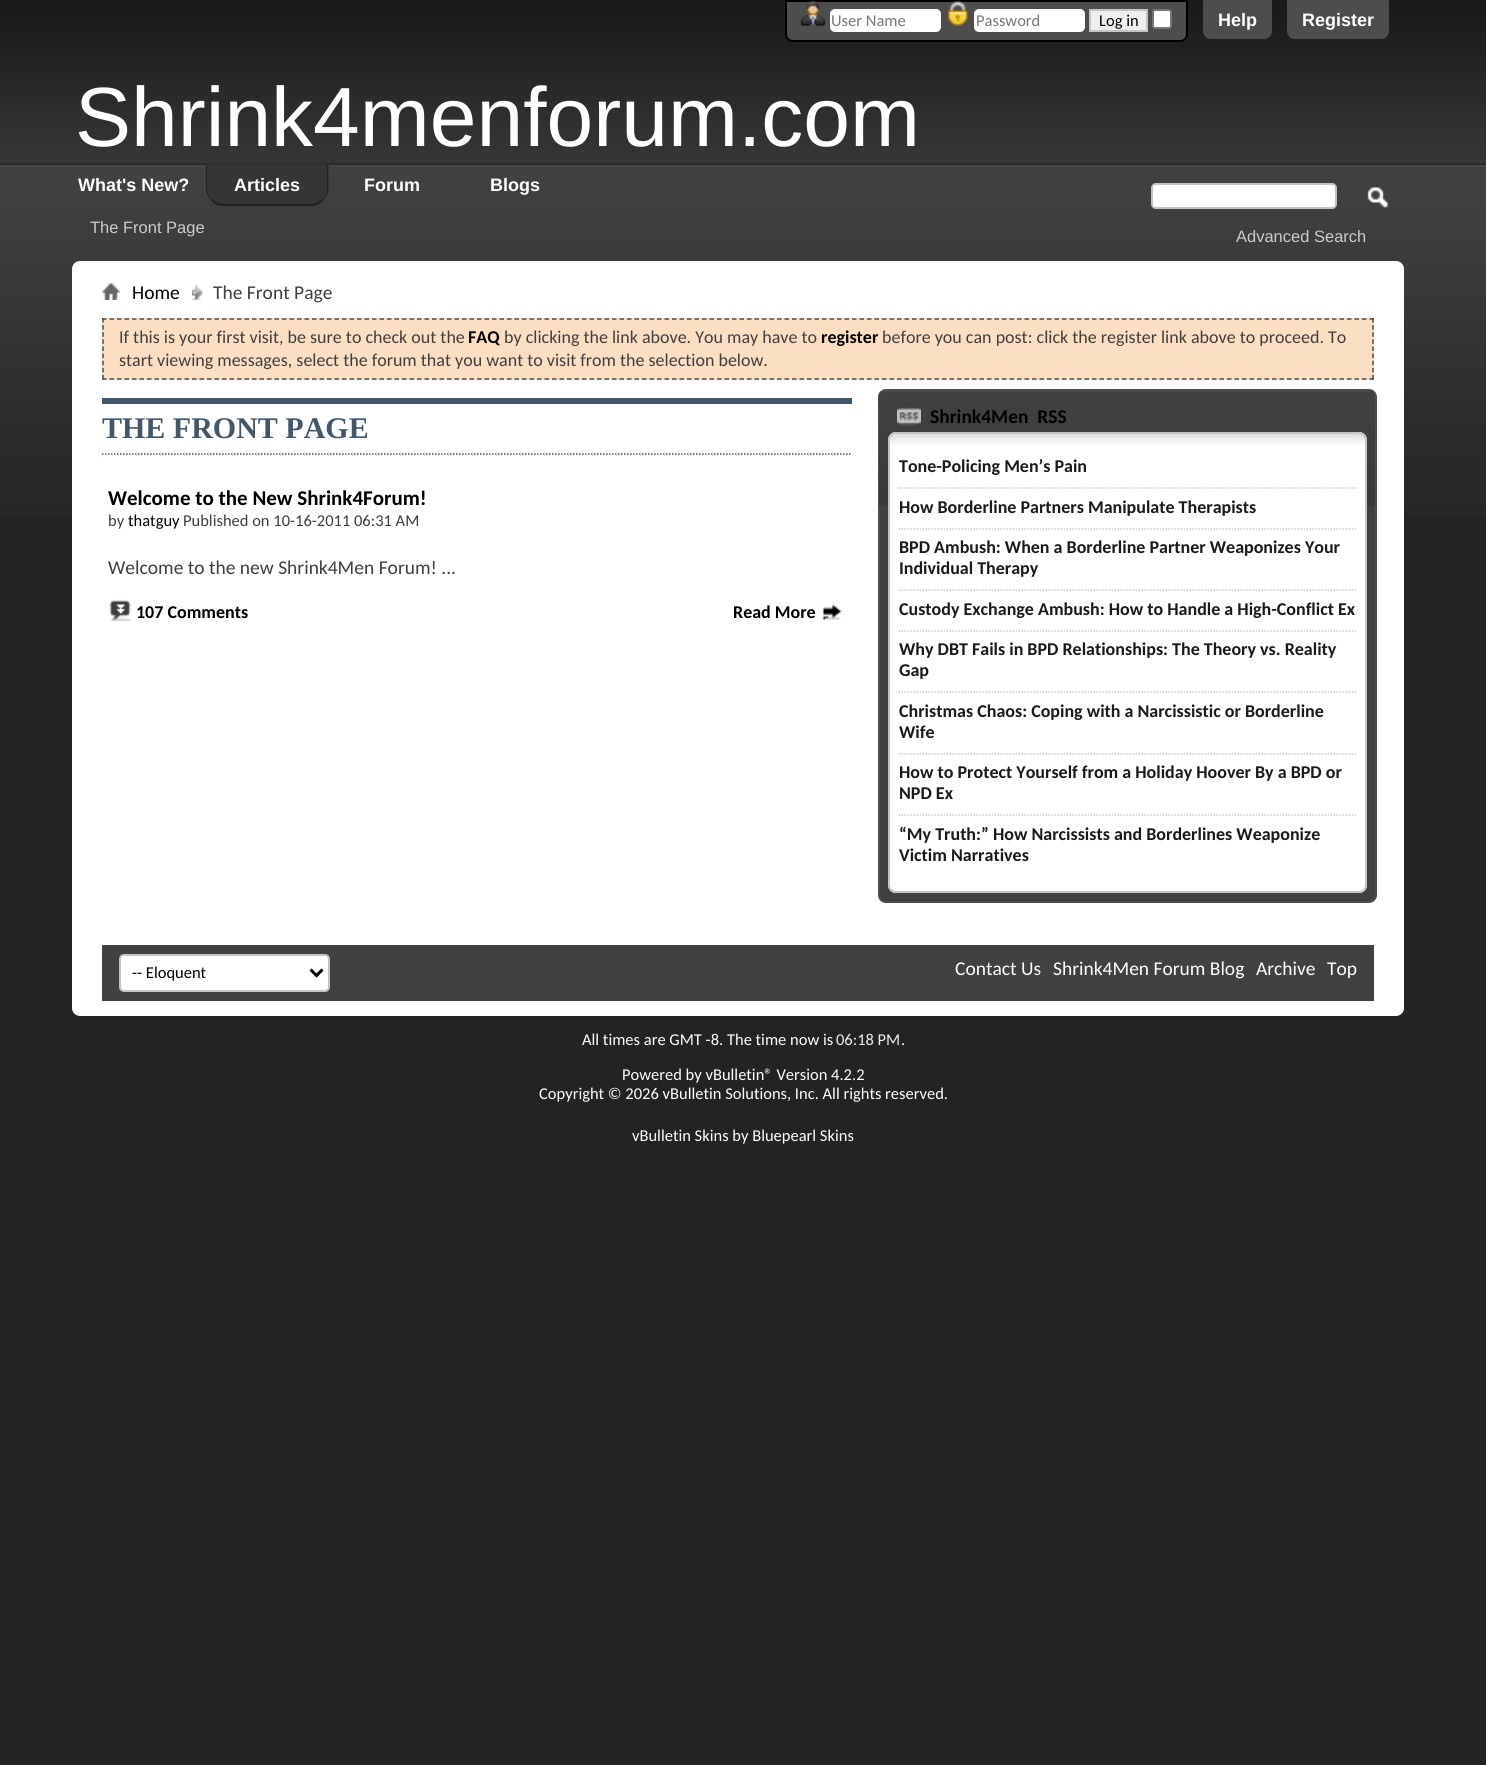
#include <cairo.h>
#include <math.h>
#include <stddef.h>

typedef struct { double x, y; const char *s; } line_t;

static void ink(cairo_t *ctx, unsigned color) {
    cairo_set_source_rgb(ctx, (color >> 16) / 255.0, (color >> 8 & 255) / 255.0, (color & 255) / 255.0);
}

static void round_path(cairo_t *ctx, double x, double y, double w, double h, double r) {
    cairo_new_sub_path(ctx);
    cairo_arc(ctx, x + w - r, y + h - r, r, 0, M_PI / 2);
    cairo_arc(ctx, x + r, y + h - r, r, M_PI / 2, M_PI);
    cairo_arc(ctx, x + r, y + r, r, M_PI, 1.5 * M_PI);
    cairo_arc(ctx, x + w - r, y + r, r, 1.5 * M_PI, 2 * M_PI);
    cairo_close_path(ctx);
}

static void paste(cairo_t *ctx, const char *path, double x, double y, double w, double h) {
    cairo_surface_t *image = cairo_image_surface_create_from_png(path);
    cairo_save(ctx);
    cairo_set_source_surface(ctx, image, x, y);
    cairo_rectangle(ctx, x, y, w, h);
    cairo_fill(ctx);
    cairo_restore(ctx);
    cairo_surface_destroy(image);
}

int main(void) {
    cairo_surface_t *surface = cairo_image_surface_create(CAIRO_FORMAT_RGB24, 1486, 1765);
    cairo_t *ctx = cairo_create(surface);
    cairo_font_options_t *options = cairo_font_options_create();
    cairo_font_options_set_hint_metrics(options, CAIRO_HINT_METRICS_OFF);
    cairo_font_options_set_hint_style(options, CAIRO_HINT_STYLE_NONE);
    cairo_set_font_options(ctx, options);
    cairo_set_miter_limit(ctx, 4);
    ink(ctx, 0x232323);
    cairo_paint(ctx);
    paste(ctx, "media/1.png", 0, 0, 1486, 516);
    ink(ctx, 0x4D4D4D);
    cairo_new_path(ctx);
    cairo_move_to(ctx, 786, 1);
    cairo_line_to(ctx, 1187, 1);
    cairo_line_to(ctx, 1187, 34);
    cairo_curve_to(ctx, 1187, 38, 1184, 41, 1180, 41);
    cairo_line_to(ctx, 793, 41);
    cairo_curve_to(ctx, 789, 41, 786, 38, 786, 34);
    cairo_close_path(ctx);
    cairo_fill_preserve(ctx);
    ink(ctx, 0x000000);
    cairo_stroke(ctx);
    paste(ctx, "media/2.png", 801, 1, 24, 25);
    ink(ctx, 0xFFFFFF);
    round_path(ctx, 830, 9, 111, 23, 5);
    cairo_fill(ctx);
    cairo_select_font_face(ctx, "Carlito", CAIRO_FONT_SLANT_NORMAL, CAIRO_FONT_WEIGHT_NORMAL);
    cairo_set_font_size(ctx, 16.5);
    ink(ctx, 0x777777);
    cairo_move_to(ctx, 831, 26);
    cairo_show_text(ctx, "User Name");
    paste(ctx, "media/3.png", 947, 1, 21, 25);
    ink(ctx, 0xFFFFFF);
    round_path(ctx, 974, 9, 111, 23, 5);
    cairo_fill(ctx);
    ink(ctx, 0x777777);
    cairo_move_to(ctx, 976, 26);
    cairo_show_text(ctx, "Password");
    ink(ctx, 0xEFEFEF);
    cairo_rectangle(ctx, 1090, 10, 57, 21);
    cairo_fill_preserve(ctx);
    ink(ctx, 0xC4C4C4);
    cairo_stroke(ctx);
    ink(ctx, 0x000000);
    cairo_move_to(ctx, 1099, 26);
    cairo_show_text(ctx, "Log in");
    ink(ctx, 0xFFFFFF);
    round_path(ctx, 1153, 10, 18, 18, 2);
    cairo_fill_preserve(ctx);
    ink(ctx, 0x767676);
    cairo_stroke(ctx);
    ink(ctx, 0x4D4D4D);
    cairo_new_path(ctx);
    cairo_move_to(ctx, 1203, 0);
    cairo_line_to(ctx, 1272, 0);
    cairo_line_to(ctx, 1272, 31);
    cairo_curve_to(ctx, 1272, 35.5, 1268.5, 39, 1264, 39);
    cairo_line_to(ctx, 1211, 39);
    cairo_curve_to(ctx, 1206.5, 39, 1203, 35.5, 1203, 31);
    cairo_close_path(ctx);
    cairo_fill(ctx);
    cairo_select_font_face(ctx, "Liberation Sans", CAIRO_FONT_SLANT_NORMAL, CAIRO_FONT_WEIGHT_BOLD);
    cairo_set_font_size(ctx, 18);
    ink(ctx, 0xFFFFFF);
    cairo_move_to(ctx, 1218, 26);
    cairo_show_text(ctx, "Help");
    ink(ctx, 0x4D4D4D);
    cairo_new_path(ctx);
    cairo_move_to(ctx, 1287, 0);
    cairo_line_to(ctx, 1389, 0);
    cairo_line_to(ctx, 1389, 31);
    cairo_curve_to(ctx, 1389, 35.5, 1385.5, 39, 1381, 39);
    cairo_line_to(ctx, 1295, 39);
    cairo_curve_to(ctx, 1290.5, 39, 1287, 35.5, 1287, 31);
    cairo_close_path(ctx);
    cairo_fill(ctx);
    ink(ctx, 0xFFFFFF);
    cairo_move_to(ctx, 1302, 26);
    cairo_show_text(ctx, "Register");
    cairo_select_font_face(ctx, "Liberation Sans", CAIRO_FONT_SLANT_NORMAL, CAIRO_FONT_WEIGHT_NORMAL);
    cairo_set_font_size(ctx, 84);
    cairo_move_to(ctx, 75, 146);
    cairo_show_text(ctx, "Shrink4menforum.com");
    cairo_select_font_face(ctx, "Liberation Sans", CAIRO_FONT_SLANT_NORMAL, CAIRO_FONT_WEIGHT_BOLD);
    cairo_set_font_size(ctx, 18);
    cairo_move_to(ctx, 78, 191);
    cairo_show_text(ctx, "What's New?");
    ink(ctx, 0x353535);
    cairo_new_path(ctx);
    cairo_move_to(ctx, 206, 164);
    cairo_line_to(ctx, 329, 164);
    cairo_line_to(ctx, 329, 188);
    cairo_curve_to(ctx, 329, 198, 321, 206, 311, 206);
    cairo_line_to(ctx, 224, 206);
    cairo_curve_to(ctx, 214, 206, 206, 198, 206, 188);
    cairo_close_path(ctx);
    cairo_fill(ctx);
    ink(ctx, 0x222222);
    cairo_new_path(ctx);
    cairo_move_to(ctx, 323, 200);
    cairo_curve_to(ctx, 326, 196.5, 328, 192.5, 328, 188);
    cairo_line_to(ctx, 328, 164);
    cairo_line_to(ctx, 327, 165);
    cairo_line_to(ctx, 327, 188);
    cairo_curve_to(ctx, 327, 192.5, 325.5, 196.5, 322.5, 199.5);
    cairo_close_path(ctx);
    cairo_fill(ctx);
    cairo_new_path(ctx);
    cairo_move_to(ctx, 220, 206);
    cairo_curve_to(ctx, 216, 205, 213, 203, 211, 200);
    cairo_line_to(ctx, 212, 199);
    cairo_curve_to(ctx, 215, 202, 219, 204, 224, 204);
    cairo_line_to(ctx, 310, 204);
    cairo_curve_to(ctx, 315, 204, 319, 202, 322, 199);
    cairo_line_to(ctx, 323, 200);
    cairo_curve_to(ctx, 321, 203, 318, 205, 314, 206);
    cairo_close_path(ctx);
    cairo_fill(ctx);
    cairo_new_path(ctx);
    cairo_move_to(ctx, 207, 165);
    cairo_line_to(ctx, 206, 164);
    cairo_line_to(ctx, 206, 188);
    cairo_curve_to(ctx, 206, 192.5, 208, 196.5, 211, 200);
    cairo_line_to(ctx, 211.5, 199.5);
    cairo_curve_to(ctx, 208.5, 196.5, 207, 192.5, 207, 188);
    cairo_close_path(ctx);
    cairo_fill(ctx);
    ink(ctx, 0xFFFFFF);
    {
        static const line_t items[] = {
            {234, 191, "Articles"},
            {364, 191, "Forum"},
            {490, 191, "Blogs"},
        };
        for (size_t i = 0; i < sizeof items / sizeof *items; i++) {
            cairo_move_to(ctx, items[i].x, items[i].y);
            cairo_show_text(ctx, items[i].s);
        }
    }
    cairo_select_font_face(ctx, "Liberation Sans", CAIRO_FONT_SLANT_NORMAL, CAIRO_FONT_WEIGHT_NORMAL);
    cairo_set_font_size(ctx, 16.5);
    ink(ctx, 0xCCCCCC);
    cairo_move_to(ctx, 90, 233);
    cairo_show_text(ctx, "The Front Page");
    ink(ctx, 0xFFFFFF);
    round_path(ctx, 1152, 184, 184, 24, 4);
    cairo_fill_preserve(ctx);
    ink(ctx, 0xC4C4C4);
    cairo_stroke(ctx);
    paste(ctx, "media/4.png", 1367, 187, 21, 22);
    ink(ctx, 0xCCCCCC);
    cairo_move_to(ctx, 1236, 242);
    cairo_show_text(ctx, "Advanced Search");
    ink(ctx, 0xFFFFFF);
    round_path(ctx, 72, 261, 1332, 755, 8);
    cairo_fill(ctx);
    paste(ctx, "media/5.png", 102, 282, 18, 18);
    paste(ctx, "media/6.png", 192, 284, 11, 16);
    cairo_select_font_face(ctx, "Carlito", CAIRO_FONT_SLANT_NORMAL, CAIRO_FONT_WEIGHT_NORMAL);
    cairo_set_font_size(ctx, 19.5);
    ink(ctx, 0x000000);
    cairo_move_to(ctx, 132, 299);
    cairo_show_text(ctx, "Home");
    ink(ctx, 0x3E3E3E);
    cairo_move_to(ctx, 213, 299);
    cairo_show_text(ctx, "The Front Page");
    ink(ctx, 0xFCDEC1);
    cairo_rectangle(ctx, 102, 318, 1272, 62);
    cairo_fill(ctx);
    cairo_new_path(ctx);
    cairo_move_to(ctx, 102, 319);
    cairo_line_to(ctx, 1374, 319);
    ink(ctx, 0x4D4D4D);
    cairo_set_line_width(ctx, 1.5);
    cairo_set_dash(ctx, (double[]){4.5, 3}, 2, 0);
    cairo_stroke(ctx);
    cairo_new_path(ctx);
    cairo_move_to(ctx, 1373, 318);
    cairo_line_to(ctx, 1373, 379.5);
    cairo_set_dash(ctx, (double[]){4.5, 2.62}, 2, 0);
    cairo_stroke(ctx);
    cairo_new_path(ctx);
    cairo_move_to(ctx, 102, 379);
    cairo_line_to(ctx, 1374, 379);
    cairo_set_dash(ctx, (double[]){4.5, 3}, 2, 0);
    cairo_stroke(ctx);
    cairo_new_path(ctx);
    cairo_move_to(ctx, 103, 318);
    cairo_line_to(ctx, 103, 379.5);
    cairo_set_dash(ctx, (double[]){4.5, 2.62}, 2, 0);
    cairo_stroke(ctx);
    cairo_set_font_size(ctx, 18);
    ink(ctx, 0x3E3E3E);
    cairo_move_to(ctx, 119, 343);
    cairo_show_text(ctx, "If this is your first visit, be sure to check out the");
    cairo_select_font_face(ctx, "Carlito", CAIRO_FONT_SLANT_NORMAL, CAIRO_FONT_WEIGHT_BOLD);
    ink(ctx, 0x000000);
    cairo_move_to(ctx, 468, 343);
    cairo_show_text(ctx, "FAQ");
    cairo_select_font_face(ctx, "Carlito", CAIRO_FONT_SLANT_NORMAL, CAIRO_FONT_WEIGHT_NORMAL);
    ink(ctx, 0x3E3E3E);
    cairo_move_to(ctx, 504, 343);
    cairo_show_text(ctx, "by clicking the link above. You may have to");
    cairo_select_font_face(ctx, "Carlito", CAIRO_FONT_SLANT_NORMAL, CAIRO_FONT_WEIGHT_BOLD);
    ink(ctx, 0x000000);
    cairo_move_to(ctx, 821, 343);
    cairo_show_text(ctx, "register");
    cairo_select_font_face(ctx, "Carlito", CAIRO_FONT_SLANT_NORMAL, CAIRO_FONT_WEIGHT_NORMAL);
    ink(ctx, 0x3E3E3E);
    cairo_move_to(ctx, 882, 343);
    cairo_show_text(ctx, "before you can post: click the register link above to proceed. To");
    cairo_move_to(ctx, 119, 366);
    cairo_show_text(ctx, "start viewing messages, select the forum that you want to visit from the selection below.");
    ink(ctx, 0x425769);
    cairo_rectangle(ctx, 102, 398, 750, 6);
    cairo_fill(ctx);
    cairo_new_path(ctx);
    cairo_move_to(ctx, 102, 454);
    cairo_line_to(ctx, 852, 454);
    cairo_set_dash(ctx, (double[]){1.5, 1.5}, 2, 0);
    cairo_stroke(ctx);
    cairo_select_font_face(ctx, "Liberation Serif", CAIRO_FONT_SLANT_NORMAL, CAIRO_FONT_WEIGHT_BOLD);
    cairo_set_font_size(ctx, 30);
    cairo_move_to(ctx, 102, 438);
    cairo_show_text(ctx, "THE FRONT PAGE");
    cairo_select_font_face(ctx, "Carlito", CAIRO_FONT_SLANT_NORMAL, CAIRO_FONT_WEIGHT_BOLD);
    cairo_set_font_size(ctx, 21);
    ink(ctx, 0x000000);
    cairo_move_to(ctx, 108, 505);
    cairo_show_text(ctx, "Welcome to the New Shrink4Forum!");
    cairo_select_font_face(ctx, "Carlito", CAIRO_FONT_SLANT_NORMAL, CAIRO_FONT_WEIGHT_NORMAL);
    cairo_set_font_size(ctx, 16.5);
    ink(ctx, 0x3E3E3E);
    cairo_move_to(ctx, 108, 526);
    cairo_show_text(ctx, "by");
    ink(ctx, 0x000000);
    cairo_move_to(ctx, 128, 526);
    cairo_show_text(ctx, "thatguy");
    ink(ctx, 0x3E3E3E);
    cairo_move_to(ctx, 183, 526);
    cairo_show_text(ctx, "Published on 10-16-2011 06:31 AM");
    cairo_set_font_size(ctx, 19.5);
    cairo_move_to(ctx, 108, 574);
    cairo_show_text(ctx, "Welcome to the new Shrink4Men Forum! ...");
    paste(ctx, "media/7.png", 109, 599, 23, 22);
    cairo_select_font_face(ctx, "Carlito", CAIRO_FONT_SLANT_NORMAL, CAIRO_FONT_WEIGHT_BOLD);
    cairo_set_font_size(ctx, 18);
    ink(ctx, 0x000000);
    cairo_move_to(ctx, 136, 618);
    cairo_show_text(ctx, "107 Comments");
    cairo_move_to(ctx, 733, 618);
    cairo_show_text(ctx, "Read More");
    paste(ctx, "media/8.png", 821, 604, 21, 16);
    ink(ctx, 0x414141);
    round_path(ctx, 879, 390, 497, 512, 7);
    cairo_fill_preserve(ctx);
    ink(ctx, 0x4D4D4D);
    cairo_set_line_width(ctx, 2);
    cairo_set_dash(ctx, NULL, 0, 0);
    cairo_stroke(ctx);
    paste(ctx, "media/9.png", 879, 391, 496, 115);
    paste(ctx, "media/10.png", 897, 407, 24, 19);
    cairo_set_font_size(ctx, 19.5);
    ink(ctx, 0x000000);
    cairo_move_to(ctx, 930, 423);
    cairo_show_text(ctx, "Shrink4Men  RSS");
    ink(ctx, 0xFFFFFF);
    round_path(ctx, 888, 432, 479, 461, 8);
    cairo_fill(ctx);
    paste(ctx, "media/11.png", 888, 433, 478, 12);
    round_path(ctx, 889, 433, 477, 459, 7);
    ink(ctx, 0xC4C4C4);
    cairo_stroke(ctx);
    cairo_set_font_size(ctx, 18);
    ink(ctx, 0x1A1A1A);
    cairo_move_to(ctx, 899, 472);
    cairo_show_text(ctx, "Tone-Policing Men’s Pain");
    cairo_new_path(ctx);
    cairo_move_to(ctx, 898.5, 488);
    cairo_line_to(ctx, 1356, 488);
    ink(ctx, 0xC9C9C9);
    cairo_set_line_width(ctx, 1.5);
    cairo_set_dash(ctx, (double[]){1.5, 1.5}, 2, 0);
    cairo_stroke(ctx);
    ink(ctx, 0x1A1A1A);
    cairo_move_to(ctx, 899, 513);
    cairo_show_text(ctx, "How Borderline Partners Manipulate Therapists");
    cairo_new_path(ctx);
    cairo_move_to(ctx, 898.5, 529);
    cairo_line_to(ctx, 1356, 529);
    ink(ctx, 0xC9C9C9);
    cairo_stroke(ctx);
    ink(ctx, 0x1A1A1A);
    cairo_move_to(ctx, 899, 553);
    cairo_show_text(ctx, "BPD Ambush: When a Borderline Partner Weaponizes Your");
    cairo_move_to(ctx, 899, 574);
    cairo_show_text(ctx, "Individual Therapy");
    cairo_new_path(ctx);
    cairo_move_to(ctx, 898.5, 590);
    cairo_line_to(ctx, 1356, 590);
    ink(ctx, 0xC9C9C9);
    cairo_stroke(ctx);
    ink(ctx, 0x1A1A1A);
    cairo_move_to(ctx, 899, 615);
    cairo_show_text(ctx, "Custody Exchange Ambush: How to Handle a High-Conflict Ex");
    cairo_new_path(ctx);
    cairo_move_to(ctx, 898.5, 631);
    cairo_line_to(ctx, 1356, 631);
    ink(ctx, 0xC9C9C9);
    cairo_stroke(ctx);
    ink(ctx, 0x1A1A1A);
    cairo_move_to(ctx, 899, 655);
    cairo_show_text(ctx, "Why DBT Fails in BPD Relationships: The Theory vs. Reality");
    cairo_move_to(ctx, 899, 676);
    cairo_show_text(ctx, "Gap");
    cairo_new_path(ctx);
    cairo_move_to(ctx, 898.5, 692);
    cairo_line_to(ctx, 1356, 692);
    ink(ctx, 0xC9C9C9);
    cairo_stroke(ctx);
    ink(ctx, 0x1A1A1A);
    cairo_move_to(ctx, 899, 717);
    cairo_show_text(ctx, "Christmas Chaos: Coping with a Narcissistic or Borderline");
    cairo_move_to(ctx, 899, 738);
    cairo_show_text(ctx, "Wife");
    cairo_new_path(ctx);
    cairo_move_to(ctx, 898.5, 754);
    cairo_line_to(ctx, 1356, 754);
    ink(ctx, 0xC9C9C9);
    cairo_stroke(ctx);
    ink(ctx, 0x1A1A1A);
    cairo_move_to(ctx, 899, 778);
    cairo_show_text(ctx, "How to Protect Yourself from a Holiday Hoover By a BPD or");
    cairo_move_to(ctx, 899, 799);
    cairo_show_text(ctx, "NPD Ex");
    cairo_new_path(ctx);
    cairo_move_to(ctx, 898.5, 815);
    cairo_line_to(ctx, 1356, 815);
    ink(ctx, 0xC9C9C9);
    cairo_stroke(ctx);
    ink(ctx, 0x1A1A1A);
    cairo_move_to(ctx, 899, 840);
    cairo_show_text(ctx, "“My Truth:” How Narcissists and Borderlines Weaponize");
    cairo_move_to(ctx, 899, 861);
    cairo_show_text(ctx, "Victim Narratives");
    ink(ctx, 0x414141);
    cairo_rectangle(ctx, 102, 945, 1272, 56);
    cairo_fill(ctx);
    ink(ctx, 0xFFFFFF);
    round_path(ctx, 120, 955, 209, 36, 4);
    cairo_fill_preserve(ctx);
    ink(ctx, 0xC4C4C4);
    cairo_set_line_width(ctx, 2);
    cairo_set_dash(ctx, NULL, 0, 0);
    cairo_stroke(ctx);
    cairo_new_path(ctx);
    cairo_move_to(ctx, 310.5, 969.5);
    cairo_line_to(ctx, 316.5, 975.5);
    cairo_line_to(ctx, 322.5, 969.5);
    ink(ctx, 0x000000);
    cairo_set_line_width(ctx, 3);
    cairo_stroke(ctx);
    cairo_select_font_face(ctx, "Carlito", CAIRO_FONT_SLANT_NORMAL, CAIRO_FONT_WEIGHT_NORMAL);
    cairo_set_font_size(ctx, 16.5);
    cairo_move_to(ctx, 132, 978);
    cairo_show_text(ctx, "-- Eloquent");
    cairo_set_font_size(ctx, 19.5);
    ink(ctx, 0xFFFFFF);
    {
        static const line_t items[] = {
            {955, 975, "Contact Us"},
            {1053, 975, "Shrink4Men Forum Blog"},
            {1256, 975, "Archive"},
            {1327, 975, "Top"},
        };
        for (size_t i = 0; i < sizeof items / sizeof *items; i++) {
            cairo_move_to(ctx, items[i].x, items[i].y);
            cairo_show_text(ctx, items[i].s);
        }
    }
    cairo_set_font_size(ctx, 16.5);
    cairo_move_to(ctx, 582, 1045);
    cairo_show_text(ctx, "All times are GMT -8. The time now is");
    ink(ctx, 0xEEEEEE);
    cairo_move_to(ctx, 836, 1045);
    cairo_show_text(ctx, "06:18 PM");
    ink(ctx, 0xFFFFFF);
    {
        static const line_t items[] = {
            {901, 1045, "."},
            {622, 1080, "Powered by vBulletin® Version 4.2.2"},
            {539, 1099, "Copyright © 2026 vBulletin Solutions, Inc. All rights reserved."},
            {632, 1141, "vBulletin Skins by Bluepearl Skins"},
        };
        for (size_t i = 0; i < sizeof items / sizeof *items; i++) {
            cairo_move_to(ctx, items[i].x, items[i].y);
            cairo_show_text(ctx, items[i].s);
        }
    }
    cairo_surface_write_to_png(surface, "image.png");
    cairo_font_options_destroy(options);
    cairo_destroy(ctx);
    cairo_surface_destroy(surface);
    return 0;
}
